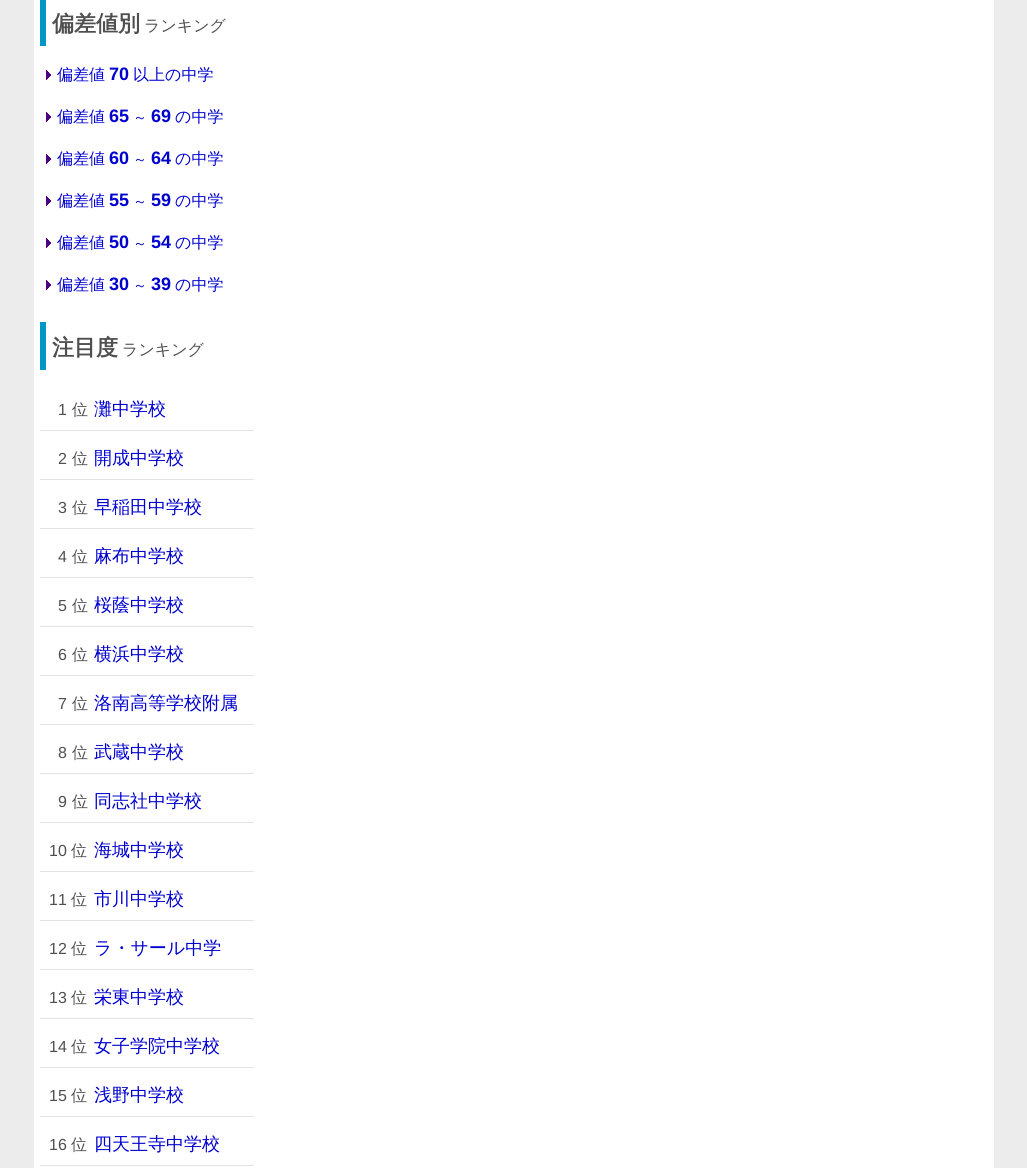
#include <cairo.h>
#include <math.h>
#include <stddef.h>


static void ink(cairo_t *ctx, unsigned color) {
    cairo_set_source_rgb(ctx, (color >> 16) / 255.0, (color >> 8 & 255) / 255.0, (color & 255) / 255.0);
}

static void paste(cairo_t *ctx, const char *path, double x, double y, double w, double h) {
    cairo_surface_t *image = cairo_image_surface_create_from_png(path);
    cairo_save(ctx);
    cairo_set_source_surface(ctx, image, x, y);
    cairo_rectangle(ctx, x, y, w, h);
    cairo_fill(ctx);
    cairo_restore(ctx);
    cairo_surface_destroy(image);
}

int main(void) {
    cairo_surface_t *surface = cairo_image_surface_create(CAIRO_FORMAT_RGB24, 1027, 1168);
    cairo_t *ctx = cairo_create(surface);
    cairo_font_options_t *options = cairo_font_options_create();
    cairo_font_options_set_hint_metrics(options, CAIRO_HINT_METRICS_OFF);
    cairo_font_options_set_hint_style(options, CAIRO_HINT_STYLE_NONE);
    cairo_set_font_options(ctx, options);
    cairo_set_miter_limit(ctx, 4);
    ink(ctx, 0xECECEC);
    cairo_paint(ctx);
    ink(ctx, 0xFFFFFF);
    cairo_rectangle(ctx, 34, 0, 960, 1168);
    cairo_fill(ctx);
    ink(ctx, 0x0096C3);
    cairo_rectangle(ctx, 40, 0, 6, 46);
    cairo_fill(ctx);
    cairo_select_font_face(ctx, "WenQuanYi Zen Hei", CAIRO_FONT_SLANT_NORMAL, CAIRO_FONT_WEIGHT_BOLD);
    cairo_set_font_size(ctx, 22);
    ink(ctx, 0x4F4F4F);
    cairo_move_to(ctx, 52, 31);
    cairo_show_text(ctx, "偏差値別");
    cairo_select_font_face(ctx, "WenQuanYi Zen Hei Medium", CAIRO_FONT_SLANT_NORMAL, CAIRO_FONT_WEIGHT_NORMAL);
    cairo_set_font_size(ctx, 16);
    cairo_move_to(ctx, 144, 31);
    cairo_show_text(ctx, "ランキング");
    paste(ctx, "media/1.png", 46, 70, 5, 10);
    ink(ctx, 0x0000CF);
    cairo_move_to(ctx, 57, 80);
    cairo_show_text(ctx, "偏差値");
    cairo_select_font_face(ctx, "Liberation Sans", CAIRO_FONT_SLANT_NORMAL, CAIRO_FONT_WEIGHT_BOLD);
    cairo_set_font_size(ctx, 18);
    cairo_move_to(ctx, 109, 80);
    cairo_show_text(ctx, "70");
    cairo_select_font_face(ctx, "WenQuanYi Zen Hei Medium", CAIRO_FONT_SLANT_NORMAL, CAIRO_FONT_WEIGHT_NORMAL);
    cairo_set_font_size(ctx, 16);
    cairo_move_to(ctx, 133, 80);
    cairo_show_text(ctx, "以上の中学");
    paste(ctx, "media/1.png", 46, 112, 5, 10);
    cairo_move_to(ctx, 57, 122);
    cairo_show_text(ctx, "偏差値");
    cairo_select_font_face(ctx, "Liberation Sans", CAIRO_FONT_SLANT_NORMAL, CAIRO_FONT_WEIGHT_BOLD);
    cairo_set_font_size(ctx, 18);
    cairo_move_to(ctx, 109, 122);
    cairo_show_text(ctx, "65");
    cairo_select_font_face(ctx, "WenQuanYi Zen Hei Medium", CAIRO_FONT_SLANT_NORMAL, CAIRO_FONT_WEIGHT_NORMAL);
    cairo_set_font_size(ctx, 14);
    cairo_move_to(ctx, 133, 122);
    cairo_show_text(ctx, "～");
    cairo_select_font_face(ctx, "Liberation Sans", CAIRO_FONT_SLANT_NORMAL, CAIRO_FONT_WEIGHT_BOLD);
    cairo_set_font_size(ctx, 18);
    cairo_move_to(ctx, 151, 122);
    cairo_show_text(ctx, "69");
    cairo_select_font_face(ctx, "WenQuanYi Zen Hei Medium", CAIRO_FONT_SLANT_NORMAL, CAIRO_FONT_WEIGHT_NORMAL);
    cairo_set_font_size(ctx, 16);
    cairo_move_to(ctx, 175, 122);
    cairo_show_text(ctx, "の中学");
    paste(ctx, "media/1.png", 46, 154, 5, 10);
    cairo_move_to(ctx, 57, 164);
    cairo_show_text(ctx, "偏差値");
    cairo_select_font_face(ctx, "Liberation Sans", CAIRO_FONT_SLANT_NORMAL, CAIRO_FONT_WEIGHT_BOLD);
    cairo_set_font_size(ctx, 18);
    cairo_move_to(ctx, 109, 164);
    cairo_show_text(ctx, "60");
    cairo_select_font_face(ctx, "WenQuanYi Zen Hei Medium", CAIRO_FONT_SLANT_NORMAL, CAIRO_FONT_WEIGHT_NORMAL);
    cairo_set_font_size(ctx, 14);
    cairo_move_to(ctx, 133, 164);
    cairo_show_text(ctx, "～");
    cairo_select_font_face(ctx, "Liberation Sans", CAIRO_FONT_SLANT_NORMAL, CAIRO_FONT_WEIGHT_BOLD);
    cairo_set_font_size(ctx, 18);
    cairo_move_to(ctx, 151, 164);
    cairo_show_text(ctx, "64");
    cairo_select_font_face(ctx, "WenQuanYi Zen Hei Medium", CAIRO_FONT_SLANT_NORMAL, CAIRO_FONT_WEIGHT_NORMAL);
    cairo_set_font_size(ctx, 16);
    cairo_move_to(ctx, 175, 164);
    cairo_show_text(ctx, "の中学");
    paste(ctx, "media/1.png", 46, 196, 5, 10);
    cairo_move_to(ctx, 57, 206);
    cairo_show_text(ctx, "偏差値");
    cairo_select_font_face(ctx, "Liberation Sans", CAIRO_FONT_SLANT_NORMAL, CAIRO_FONT_WEIGHT_BOLD);
    cairo_set_font_size(ctx, 18);
    cairo_move_to(ctx, 109, 206);
    cairo_show_text(ctx, "55");
    cairo_select_font_face(ctx, "WenQuanYi Zen Hei Medium", CAIRO_FONT_SLANT_NORMAL, CAIRO_FONT_WEIGHT_NORMAL);
    cairo_set_font_size(ctx, 14);
    cairo_move_to(ctx, 133, 206);
    cairo_show_text(ctx, "～");
    cairo_select_font_face(ctx, "Liberation Sans", CAIRO_FONT_SLANT_NORMAL, CAIRO_FONT_WEIGHT_BOLD);
    cairo_set_font_size(ctx, 18);
    cairo_move_to(ctx, 151, 206);
    cairo_show_text(ctx, "59");
    cairo_select_font_face(ctx, "WenQuanYi Zen Hei Medium", CAIRO_FONT_SLANT_NORMAL, CAIRO_FONT_WEIGHT_NORMAL);
    cairo_set_font_size(ctx, 16);
    cairo_move_to(ctx, 175, 206);
    cairo_show_text(ctx, "の中学");
    paste(ctx, "media/1.png", 46, 238, 5, 10);
    cairo_move_to(ctx, 57, 248);
    cairo_show_text(ctx, "偏差値");
    cairo_select_font_face(ctx, "Liberation Sans", CAIRO_FONT_SLANT_NORMAL, CAIRO_FONT_WEIGHT_BOLD);
    cairo_set_font_size(ctx, 18);
    cairo_move_to(ctx, 109, 248);
    cairo_show_text(ctx, "50");
    cairo_select_font_face(ctx, "WenQuanYi Zen Hei Medium", CAIRO_FONT_SLANT_NORMAL, CAIRO_FONT_WEIGHT_NORMAL);
    cairo_set_font_size(ctx, 14);
    cairo_move_to(ctx, 133, 248);
    cairo_show_text(ctx, "～");
    cairo_select_font_face(ctx, "Liberation Sans", CAIRO_FONT_SLANT_NORMAL, CAIRO_FONT_WEIGHT_BOLD);
    cairo_set_font_size(ctx, 18);
    cairo_move_to(ctx, 151, 248);
    cairo_show_text(ctx, "54");
    cairo_select_font_face(ctx, "WenQuanYi Zen Hei Medium", CAIRO_FONT_SLANT_NORMAL, CAIRO_FONT_WEIGHT_NORMAL);
    cairo_set_font_size(ctx, 16);
    cairo_move_to(ctx, 175, 248);
    cairo_show_text(ctx, "の中学");
    paste(ctx, "media/1.png", 46, 280, 5, 10);
    cairo_move_to(ctx, 57, 290);
    cairo_show_text(ctx, "偏差値");
    cairo_select_font_face(ctx, "Liberation Sans", CAIRO_FONT_SLANT_NORMAL, CAIRO_FONT_WEIGHT_BOLD);
    cairo_set_font_size(ctx, 18);
    cairo_move_to(ctx, 109, 290);
    cairo_show_text(ctx, "30");
    cairo_select_font_face(ctx, "WenQuanYi Zen Hei Medium", CAIRO_FONT_SLANT_NORMAL, CAIRO_FONT_WEIGHT_NORMAL);
    cairo_set_font_size(ctx, 14);
    cairo_move_to(ctx, 133, 290);
    cairo_show_text(ctx, "～");
    cairo_select_font_face(ctx, "Liberation Sans", CAIRO_FONT_SLANT_NORMAL, CAIRO_FONT_WEIGHT_BOLD);
    cairo_set_font_size(ctx, 18);
    cairo_move_to(ctx, 151, 290);
    cairo_show_text(ctx, "39");
    cairo_select_font_face(ctx, "WenQuanYi Zen Hei Medium", CAIRO_FONT_SLANT_NORMAL, CAIRO_FONT_WEIGHT_NORMAL);
    cairo_set_font_size(ctx, 16);
    cairo_move_to(ctx, 175, 290);
    cairo_show_text(ctx, "の中学");
    ink(ctx, 0x0096C3);
    cairo_rectangle(ctx, 40, 322, 6, 48);
    cairo_fill(ctx);
    cairo_select_font_face(ctx, "WenQuanYi Zen Hei", CAIRO_FONT_SLANT_NORMAL, CAIRO_FONT_WEIGHT_BOLD);
    cairo_set_font_size(ctx, 22);
    ink(ctx, 0x4F4F4F);
    cairo_move_to(ctx, 52, 355);
    cairo_show_text(ctx, "注目度");
    cairo_select_font_face(ctx, "WenQuanYi Zen Hei Medium", CAIRO_FONT_SLANT_NORMAL, CAIRO_FONT_WEIGHT_NORMAL);
    cairo_set_font_size(ctx, 16);
    cairo_move_to(ctx, 122, 355);
    cairo_show_text(ctx, "ランキング");
    ink(ctx, 0xE3E3E3);
    cairo_rectangle(ctx, 40, 430, 214, 1);
    cairo_fill(ctx);
    cairo_select_font_face(ctx, "Liberation Sans", CAIRO_FONT_SLANT_NORMAL, CAIRO_FONT_WEIGHT_NORMAL);
    ink(ctx, 0x4F4F4F);
    cairo_move_to(ctx, 58, 415);
    cairo_show_text(ctx, "1");
    cairo_select_font_face(ctx, "WenQuanYi Zen Hei Medium", CAIRO_FONT_SLANT_NORMAL, CAIRO_FONT_WEIGHT_NORMAL);
    cairo_move_to(ctx, 72, 415);
    cairo_show_text(ctx, "位");
    cairo_set_font_size(ctx, 18);
    ink(ctx, 0x0000CF);
    cairo_move_to(ctx, 94, 415);
    cairo_show_text(ctx, "灘中学校");
    ink(ctx, 0xE3E3E3);
    cairo_rectangle(ctx, 40, 479, 214, 1);
    cairo_fill(ctx);
    cairo_select_font_face(ctx, "Liberation Sans", CAIRO_FONT_SLANT_NORMAL, CAIRO_FONT_WEIGHT_NORMAL);
    cairo_set_font_size(ctx, 16);
    ink(ctx, 0x4F4F4F);
    cairo_move_to(ctx, 58, 464);
    cairo_show_text(ctx, "2");
    cairo_select_font_face(ctx, "WenQuanYi Zen Hei Medium", CAIRO_FONT_SLANT_NORMAL, CAIRO_FONT_WEIGHT_NORMAL);
    cairo_move_to(ctx, 72, 464);
    cairo_show_text(ctx, "位");
    cairo_set_font_size(ctx, 18);
    ink(ctx, 0x0000CF);
    cairo_move_to(ctx, 94, 464);
    cairo_show_text(ctx, "開成中学校");
    ink(ctx, 0xE3E3E3);
    cairo_rectangle(ctx, 40, 528, 214, 1);
    cairo_fill(ctx);
    cairo_select_font_face(ctx, "Liberation Sans", CAIRO_FONT_SLANT_NORMAL, CAIRO_FONT_WEIGHT_NORMAL);
    cairo_set_font_size(ctx, 16);
    ink(ctx, 0x4F4F4F);
    cairo_move_to(ctx, 58, 513);
    cairo_show_text(ctx, "3");
    cairo_select_font_face(ctx, "WenQuanYi Zen Hei Medium", CAIRO_FONT_SLANT_NORMAL, CAIRO_FONT_WEIGHT_NORMAL);
    cairo_move_to(ctx, 72, 513);
    cairo_show_text(ctx, "位");
    cairo_set_font_size(ctx, 18);
    ink(ctx, 0x0000CF);
    cairo_move_to(ctx, 94, 513);
    cairo_show_text(ctx, "早稲田中学校");
    ink(ctx, 0xE3E3E3);
    cairo_rectangle(ctx, 40, 577, 214, 1);
    cairo_fill(ctx);
    cairo_select_font_face(ctx, "Liberation Sans", CAIRO_FONT_SLANT_NORMAL, CAIRO_FONT_WEIGHT_NORMAL);
    cairo_set_font_size(ctx, 16);
    ink(ctx, 0x4F4F4F);
    cairo_move_to(ctx, 58, 562);
    cairo_show_text(ctx, "4");
    cairo_select_font_face(ctx, "WenQuanYi Zen Hei Medium", CAIRO_FONT_SLANT_NORMAL, CAIRO_FONT_WEIGHT_NORMAL);
    cairo_move_to(ctx, 72, 562);
    cairo_show_text(ctx, "位");
    cairo_set_font_size(ctx, 18);
    ink(ctx, 0x0000CF);
    cairo_move_to(ctx, 94, 562);
    cairo_show_text(ctx, "麻布中学校");
    ink(ctx, 0xE3E3E3);
    cairo_rectangle(ctx, 40, 626, 214, 1);
    cairo_fill(ctx);
    cairo_select_font_face(ctx, "Liberation Sans", CAIRO_FONT_SLANT_NORMAL, CAIRO_FONT_WEIGHT_NORMAL);
    cairo_set_font_size(ctx, 16);
    ink(ctx, 0x4F4F4F);
    cairo_move_to(ctx, 58, 611);
    cairo_show_text(ctx, "5");
    cairo_select_font_face(ctx, "WenQuanYi Zen Hei Medium", CAIRO_FONT_SLANT_NORMAL, CAIRO_FONT_WEIGHT_NORMAL);
    cairo_move_to(ctx, 72, 611);
    cairo_show_text(ctx, "位");
    cairo_set_font_size(ctx, 18);
    ink(ctx, 0x0000CF);
    cairo_move_to(ctx, 94, 611);
    cairo_show_text(ctx, "桜蔭中学校");
    ink(ctx, 0xE3E3E3);
    cairo_rectangle(ctx, 40, 675, 214, 1);
    cairo_fill(ctx);
    cairo_select_font_face(ctx, "Liberation Sans", CAIRO_FONT_SLANT_NORMAL, CAIRO_FONT_WEIGHT_NORMAL);
    cairo_set_font_size(ctx, 16);
    ink(ctx, 0x4F4F4F);
    cairo_move_to(ctx, 58, 660);
    cairo_show_text(ctx, "6");
    cairo_select_font_face(ctx, "WenQuanYi Zen Hei Medium", CAIRO_FONT_SLANT_NORMAL, CAIRO_FONT_WEIGHT_NORMAL);
    cairo_move_to(ctx, 72, 660);
    cairo_show_text(ctx, "位");
    cairo_set_font_size(ctx, 18);
    ink(ctx, 0x0000CF);
    cairo_move_to(ctx, 94, 660);
    cairo_show_text(ctx, "横浜中学校");
    ink(ctx, 0xE3E3E3);
    cairo_rectangle(ctx, 40, 724, 214, 1);
    cairo_fill(ctx);
    cairo_select_font_face(ctx, "Liberation Sans", CAIRO_FONT_SLANT_NORMAL, CAIRO_FONT_WEIGHT_NORMAL);
    cairo_set_font_size(ctx, 16);
    ink(ctx, 0x4F4F4F);
    cairo_move_to(ctx, 58, 709);
    cairo_show_text(ctx, "7");
    cairo_select_font_face(ctx, "WenQuanYi Zen Hei Medium", CAIRO_FONT_SLANT_NORMAL, CAIRO_FONT_WEIGHT_NORMAL);
    cairo_move_to(ctx, 72, 709);
    cairo_show_text(ctx, "位");
    cairo_set_font_size(ctx, 18);
    ink(ctx, 0x0000CF);
    cairo_move_to(ctx, 94, 709);
    cairo_show_text(ctx, "洛南高等学校附属");
    ink(ctx, 0xE3E3E3);
    cairo_rectangle(ctx, 40, 773, 214, 1);
    cairo_fill(ctx);
    cairo_select_font_face(ctx, "Liberation Sans", CAIRO_FONT_SLANT_NORMAL, CAIRO_FONT_WEIGHT_NORMAL);
    cairo_set_font_size(ctx, 16);
    ink(ctx, 0x4F4F4F);
    cairo_move_to(ctx, 58, 758);
    cairo_show_text(ctx, "8");
    cairo_select_font_face(ctx, "WenQuanYi Zen Hei Medium", CAIRO_FONT_SLANT_NORMAL, CAIRO_FONT_WEIGHT_NORMAL);
    cairo_move_to(ctx, 72, 758);
    cairo_show_text(ctx, "位");
    cairo_set_font_size(ctx, 18);
    ink(ctx, 0x0000CF);
    cairo_move_to(ctx, 94, 758);
    cairo_show_text(ctx, "武蔵中学校");
    ink(ctx, 0xE3E3E3);
    cairo_rectangle(ctx, 40, 822, 214, 1);
    cairo_fill(ctx);
    cairo_select_font_face(ctx, "Liberation Sans", CAIRO_FONT_SLANT_NORMAL, CAIRO_FONT_WEIGHT_NORMAL);
    cairo_set_font_size(ctx, 16);
    ink(ctx, 0x4F4F4F);
    cairo_move_to(ctx, 58, 807);
    cairo_show_text(ctx, "9");
    cairo_select_font_face(ctx, "WenQuanYi Zen Hei Medium", CAIRO_FONT_SLANT_NORMAL, CAIRO_FONT_WEIGHT_NORMAL);
    cairo_move_to(ctx, 72, 807);
    cairo_show_text(ctx, "位");
    cairo_set_font_size(ctx, 18);
    ink(ctx, 0x0000CF);
    cairo_move_to(ctx, 94, 807);
    cairo_show_text(ctx, "同志社中学校");
    ink(ctx, 0xE3E3E3);
    cairo_rectangle(ctx, 40, 871, 214, 1);
    cairo_fill(ctx);
    cairo_select_font_face(ctx, "Liberation Sans", CAIRO_FONT_SLANT_NORMAL, CAIRO_FONT_WEIGHT_NORMAL);
    cairo_set_font_size(ctx, 16);
    ink(ctx, 0x4F4F4F);
    cairo_move_to(ctx, 49, 856);
    cairo_show_text(ctx, "10");
    cairo_select_font_face(ctx, "WenQuanYi Zen Hei Medium", CAIRO_FONT_SLANT_NORMAL, CAIRO_FONT_WEIGHT_NORMAL);
    cairo_move_to(ctx, 71, 856);
    cairo_show_text(ctx, "位");
    cairo_set_font_size(ctx, 18);
    ink(ctx, 0x0000CF);
    cairo_move_to(ctx, 94, 856);
    cairo_show_text(ctx, "海城中学校");
    ink(ctx, 0xE3E3E3);
    cairo_rectangle(ctx, 40, 920, 214, 1);
    cairo_fill(ctx);
    cairo_select_font_face(ctx, "Liberation Sans", CAIRO_FONT_SLANT_NORMAL, CAIRO_FONT_WEIGHT_NORMAL);
    cairo_set_font_size(ctx, 16);
    ink(ctx, 0x4F4F4F);
    cairo_move_to(ctx, 49, 905);
    cairo_show_text(ctx, "11");
    cairo_select_font_face(ctx, "WenQuanYi Zen Hei Medium", CAIRO_FONT_SLANT_NORMAL, CAIRO_FONT_WEIGHT_NORMAL);
    cairo_move_to(ctx, 71, 905);
    cairo_show_text(ctx, "位");
    cairo_set_font_size(ctx, 18);
    ink(ctx, 0x0000CF);
    cairo_move_to(ctx, 94, 905);
    cairo_show_text(ctx, "市川中学校");
    ink(ctx, 0xE3E3E3);
    cairo_rectangle(ctx, 40, 969, 214, 1);
    cairo_fill(ctx);
    cairo_select_font_face(ctx, "Liberation Sans", CAIRO_FONT_SLANT_NORMAL, CAIRO_FONT_WEIGHT_NORMAL);
    cairo_set_font_size(ctx, 16);
    ink(ctx, 0x4F4F4F);
    cairo_move_to(ctx, 49, 954);
    cairo_show_text(ctx, "12");
    cairo_select_font_face(ctx, "WenQuanYi Zen Hei Medium", CAIRO_FONT_SLANT_NORMAL, CAIRO_FONT_WEIGHT_NORMAL);
    cairo_move_to(ctx, 71, 954);
    cairo_show_text(ctx, "位");
    cairo_set_font_size(ctx, 18);
    ink(ctx, 0x0000CF);
    cairo_move_to(ctx, 94, 954);
    cairo_show_text(ctx, "ラ・サール中学");
    ink(ctx, 0xE3E3E3);
    cairo_rectangle(ctx, 40, 1018, 214, 1);
    cairo_fill(ctx);
    cairo_select_font_face(ctx, "Liberation Sans", CAIRO_FONT_SLANT_NORMAL, CAIRO_FONT_WEIGHT_NORMAL);
    cairo_set_font_size(ctx, 16);
    ink(ctx, 0x4F4F4F);
    cairo_move_to(ctx, 49, 1003);
    cairo_show_text(ctx, "13");
    cairo_select_font_face(ctx, "WenQuanYi Zen Hei Medium", CAIRO_FONT_SLANT_NORMAL, CAIRO_FONT_WEIGHT_NORMAL);
    cairo_move_to(ctx, 71, 1003);
    cairo_show_text(ctx, "位");
    cairo_set_font_size(ctx, 18);
    ink(ctx, 0x0000CF);
    cairo_move_to(ctx, 94, 1003);
    cairo_show_text(ctx, "栄東中学校");
    ink(ctx, 0xE3E3E3);
    cairo_rectangle(ctx, 40, 1067, 214, 1);
    cairo_fill(ctx);
    cairo_select_font_face(ctx, "Liberation Sans", CAIRO_FONT_SLANT_NORMAL, CAIRO_FONT_WEIGHT_NORMAL);
    cairo_set_font_size(ctx, 16);
    ink(ctx, 0x4F4F4F);
    cairo_move_to(ctx, 49, 1052);
    cairo_show_text(ctx, "14");
    cairo_select_font_face(ctx, "WenQuanYi Zen Hei Medium", CAIRO_FONT_SLANT_NORMAL, CAIRO_FONT_WEIGHT_NORMAL);
    cairo_move_to(ctx, 71, 1052);
    cairo_show_text(ctx, "位");
    cairo_set_font_size(ctx, 18);
    ink(ctx, 0x0000CF);
    cairo_move_to(ctx, 94, 1052);
    cairo_show_text(ctx, "女子学院中学校");
    ink(ctx, 0xE3E3E3);
    cairo_rectangle(ctx, 40, 1116, 214, 1);
    cairo_fill(ctx);
    cairo_select_font_face(ctx, "Liberation Sans", CAIRO_FONT_SLANT_NORMAL, CAIRO_FONT_WEIGHT_NORMAL);
    cairo_set_font_size(ctx, 16);
    ink(ctx, 0x4F4F4F);
    cairo_move_to(ctx, 49, 1101);
    cairo_show_text(ctx, "15");
    cairo_select_font_face(ctx, "WenQuanYi Zen Hei Medium", CAIRO_FONT_SLANT_NORMAL, CAIRO_FONT_WEIGHT_NORMAL);
    cairo_move_to(ctx, 71, 1101);
    cairo_show_text(ctx, "位");
    cairo_set_font_size(ctx, 18);
    ink(ctx, 0x0000CF);
    cairo_move_to(ctx, 94, 1101);
    cairo_show_text(ctx, "浅野中学校");
    ink(ctx, 0xE3E3E3);
    cairo_rectangle(ctx, 40, 1165, 214, 1);
    cairo_fill(ctx);
    cairo_select_font_face(ctx, "Liberation Sans", CAIRO_FONT_SLANT_NORMAL, CAIRO_FONT_WEIGHT_NORMAL);
    cairo_set_font_size(ctx, 16);
    ink(ctx, 0x4F4F4F);
    cairo_move_to(ctx, 49, 1150);
    cairo_show_text(ctx, "16");
    cairo_select_font_face(ctx, "WenQuanYi Zen Hei Medium", CAIRO_FONT_SLANT_NORMAL, CAIRO_FONT_WEIGHT_NORMAL);
    cairo_move_to(ctx, 71, 1150);
    cairo_show_text(ctx, "位");
    cairo_set_font_size(ctx, 18);
    ink(ctx, 0x0000CF);
    cairo_move_to(ctx, 94, 1150);
    cairo_show_text(ctx, "四天王寺中学校");
    cairo_surface_write_to_png(surface, "image.png");
    cairo_font_options_destroy(options);
    cairo_destroy(ctx);
    cairo_surface_destroy(surface);
    return 0;
}
